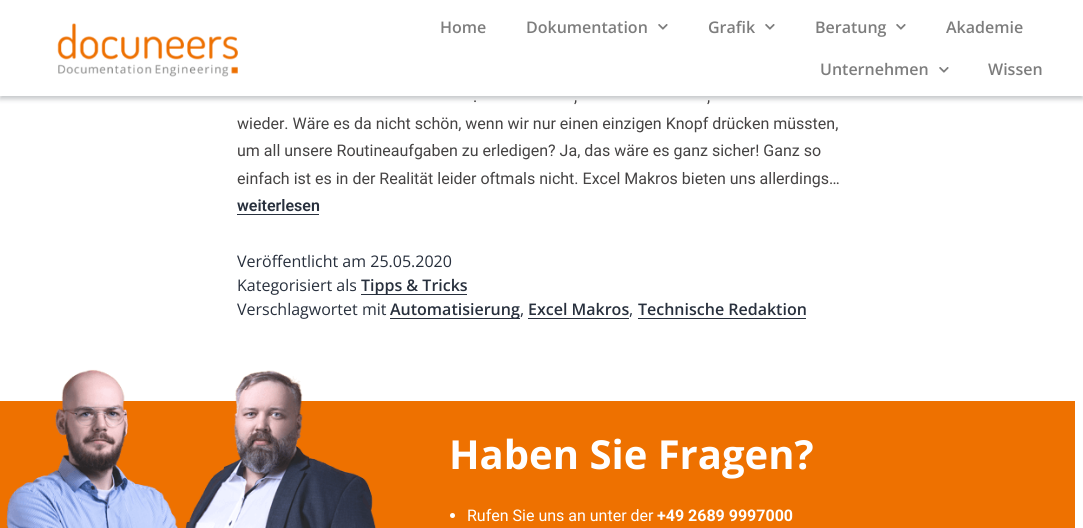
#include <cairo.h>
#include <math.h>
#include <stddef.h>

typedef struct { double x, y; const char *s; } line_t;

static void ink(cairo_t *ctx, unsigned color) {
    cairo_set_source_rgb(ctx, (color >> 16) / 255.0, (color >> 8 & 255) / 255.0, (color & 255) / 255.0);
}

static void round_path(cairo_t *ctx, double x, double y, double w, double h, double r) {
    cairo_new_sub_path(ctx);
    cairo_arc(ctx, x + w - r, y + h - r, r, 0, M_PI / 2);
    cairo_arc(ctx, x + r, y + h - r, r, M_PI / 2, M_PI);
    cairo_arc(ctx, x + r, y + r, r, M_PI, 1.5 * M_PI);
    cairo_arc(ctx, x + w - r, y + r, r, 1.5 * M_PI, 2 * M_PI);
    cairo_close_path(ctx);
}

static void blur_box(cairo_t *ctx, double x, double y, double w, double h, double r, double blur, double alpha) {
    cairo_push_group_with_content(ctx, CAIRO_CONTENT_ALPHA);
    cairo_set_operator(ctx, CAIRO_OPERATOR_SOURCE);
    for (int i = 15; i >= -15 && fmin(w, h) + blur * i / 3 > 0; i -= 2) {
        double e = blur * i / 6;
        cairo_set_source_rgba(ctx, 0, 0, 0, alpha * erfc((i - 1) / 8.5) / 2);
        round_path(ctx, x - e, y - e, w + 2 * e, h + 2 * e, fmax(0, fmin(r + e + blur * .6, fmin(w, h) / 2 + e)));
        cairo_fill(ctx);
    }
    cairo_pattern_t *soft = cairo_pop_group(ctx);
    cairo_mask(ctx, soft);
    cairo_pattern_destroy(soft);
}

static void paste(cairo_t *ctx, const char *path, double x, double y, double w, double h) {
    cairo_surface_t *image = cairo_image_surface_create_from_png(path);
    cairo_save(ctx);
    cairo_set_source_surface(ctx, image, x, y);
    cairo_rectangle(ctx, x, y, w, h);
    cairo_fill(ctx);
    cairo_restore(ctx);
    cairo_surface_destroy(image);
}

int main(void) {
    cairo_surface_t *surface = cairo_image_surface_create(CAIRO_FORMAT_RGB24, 1083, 528);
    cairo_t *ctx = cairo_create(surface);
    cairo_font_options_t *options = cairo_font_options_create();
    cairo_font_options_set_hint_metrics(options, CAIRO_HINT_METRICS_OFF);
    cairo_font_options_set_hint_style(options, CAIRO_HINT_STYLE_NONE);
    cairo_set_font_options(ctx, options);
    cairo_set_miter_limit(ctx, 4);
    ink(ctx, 0xFFFFFF);
    cairo_paint(ctx);
    ink(ctx, 0x393F48);
    blur_box(ctx, 0, 3, 1083, 96, 0, 2.5, 0.3);
    ink(ctx, 0xFFFFFF);
    cairo_rectangle(ctx, 0, 0, 1083, 96);
    cairo_fill(ctx);
    paste(ctx, "media/1.png", 57, 23, 181, 54);
    cairo_select_font_face(ctx, "Open Sans SemiBold", CAIRO_FONT_SLANT_NORMAL, CAIRO_FONT_WEIGHT_NORMAL);
    cairo_set_font_size(ctx, 16);
    ink(ctx, 0x7D7D7D);
    cairo_move_to(ctx, 440, 33);
    cairo_show_text(ctx, "Home");
    cairo_move_to(ctx, 526, 33);
    cairo_show_text(ctx, "Dokumentation");
    paste(ctx, "media/2.png", 658, 24, 10, 6);
    cairo_move_to(ctx, 708, 33);
    cairo_show_text(ctx, "Grafik");
    paste(ctx, "media/2.png", 765, 24, 10, 6);
    cairo_move_to(ctx, 815, 33);
    cairo_show_text(ctx, "Beratung");
    paste(ctx, "media/2.png", 896, 24, 10, 6);
    cairo_move_to(ctx, 946, 33);
    cairo_show_text(ctx, "Akademie");
    cairo_move_to(ctx, 820, 75);
    cairo_show_text(ctx, "Unternehmen");
    paste(ctx, "media/2.png", 939, 67, 10, 6);
    cairo_move_to(ctx, 988, 75);
    cairo_show_text(ctx, "Wissen");
    cairo_select_font_face(ctx, "Roboto", CAIRO_FONT_SLANT_NORMAL, CAIRO_FONT_WEIGHT_NORMAL);
    ink(ctx, 0x454343);
    {
        static const line_t items[] = {
            {473, 102, "."},
            {574, 102, ","},
            {707, 102, ","},
            {237, 129, "wieder. Wäre es da nicht schön, wenn wir nur einen einzigen Knopf drücken müssten,"},
            {237, 156, "um all unsere Routineaufgaben zu erledigen? Ja, das wäre es ganz sicher! Ganz so"},
            {237, 184, "einfach ist es in der Realität leider oftmals nicht. Excel Makros bieten uns allerdings…"},
        };
        for (size_t i = 0; i < sizeof items / sizeof *items; i++) {
            cairo_move_to(ctx, items[i].x, items[i].y);
            cairo_show_text(ctx, items[i].s);
        }
    }
    cairo_select_font_face(ctx, "Roboto SemiBold", CAIRO_FONT_SLANT_NORMAL, CAIRO_FONT_WEIGHT_NORMAL);
    ink(ctx, 0x28303D);
    cairo_move_to(ctx, 237, 211);
    cairo_show_text(ctx, "weiterlesen");
    cairo_rectangle(ctx, 237, 214, 82, 1);
    cairo_fill(ctx);
    cairo_select_font_face(ctx, "Open Sans", CAIRO_FONT_SLANT_NORMAL, CAIRO_FONT_WEIGHT_NORMAL);
    cairo_move_to(ctx, 237, 267);
    cairo_show_text(ctx, "Veröffentlicht am 25.05.2020");
    cairo_move_to(ctx, 237, 291);
    cairo_show_text(ctx, "Kategorisiert als");
    cairo_rectangle(ctx, 361, 294, 106, 1);
    cairo_fill(ctx);
    cairo_select_font_face(ctx, "Open Sans SemiBold", CAIRO_FONT_SLANT_NORMAL, CAIRO_FONT_WEIGHT_NORMAL);
    cairo_move_to(ctx, 361, 291);
    cairo_show_text(ctx, "Tipps & Tricks");
    cairo_select_font_face(ctx, "Open Sans", CAIRO_FONT_SLANT_NORMAL, CAIRO_FONT_WEIGHT_NORMAL);
    cairo_move_to(ctx, 237, 315);
    cairo_show_text(ctx, "Verschlagwortet mit");
    cairo_rectangle(ctx, 390, 318, 130, 1);
    cairo_fill(ctx);
    cairo_select_font_face(ctx, "Open Sans SemiBold", CAIRO_FONT_SLANT_NORMAL, CAIRO_FONT_WEIGHT_NORMAL);
    cairo_move_to(ctx, 390, 315);
    cairo_show_text(ctx, "Automatisierung");
    cairo_select_font_face(ctx, "Open Sans", CAIRO_FONT_SLANT_NORMAL, CAIRO_FONT_WEIGHT_NORMAL);
    cairo_move_to(ctx, 520, 315);
    cairo_show_text(ctx, ",");
    cairo_select_font_face(ctx, "Open Sans SemiBold", CAIRO_FONT_SLANT_NORMAL, CAIRO_FONT_WEIGHT_NORMAL);
    cairo_move_to(ctx, 528, 315);
    cairo_show_text(ctx, "Excel Makros");
    cairo_rectangle(ctx, 528, 318, 101, 1);
    cairo_fill(ctx);
    cairo_select_font_face(ctx, "Open Sans", CAIRO_FONT_SLANT_NORMAL, CAIRO_FONT_WEIGHT_NORMAL);
    cairo_move_to(ctx, 629, 315);
    cairo_show_text(ctx, ",");
    cairo_select_font_face(ctx, "Open Sans SemiBold", CAIRO_FONT_SLANT_NORMAL, CAIRO_FONT_WEIGHT_NORMAL);
    cairo_move_to(ctx, 638, 315);
    cairo_show_text(ctx, "Technische Redaktion");
    cairo_rectangle(ctx, 638, 318, 168, 1);
    cairo_fill(ctx);
    ink(ctx, 0xEE7100);
    cairo_rectangle(ctx, 0, 401, 1075, 127);
    cairo_fill(ctx);
    paste(ctx, "media/3.png", 6, 369, 370, 159);
    cairo_select_font_face(ctx, "Open Sans", CAIRO_FONT_SLANT_NORMAL, CAIRO_FONT_WEIGHT_BOLD);
    cairo_set_font_size(ctx, 40);
    ink(ctx, 0xFFFFFF);
    cairo_move_to(ctx, 449, 469);
    cairo_show_text(ctx, "Haben Sie Fragen?");
    cairo_new_path(ctx);
    cairo_arc(ctx, 452.5, 515.5, 2.5, 0, 2 * M_PI);
    cairo_fill(ctx);
    cairo_select_font_face(ctx, "Roboto", CAIRO_FONT_SLANT_NORMAL, CAIRO_FONT_WEIGHT_NORMAL);
    cairo_set_font_size(ctx, 16);
    cairo_move_to(ctx, 467, 521);
    cairo_show_text(ctx, "Rufen Sie uns an unter der");
    cairo_select_font_face(ctx, "Roboto", CAIRO_FONT_SLANT_NORMAL, CAIRO_FONT_WEIGHT_BOLD);
    cairo_move_to(ctx, 657, 521);
    cairo_show_text(ctx, "+49 2689 9997000");
    cairo_surface_write_to_png(surface, "image.png");
    cairo_font_options_destroy(options);
    cairo_destroy(ctx);
    cairo_surface_destroy(surface);
    return 0;
}
